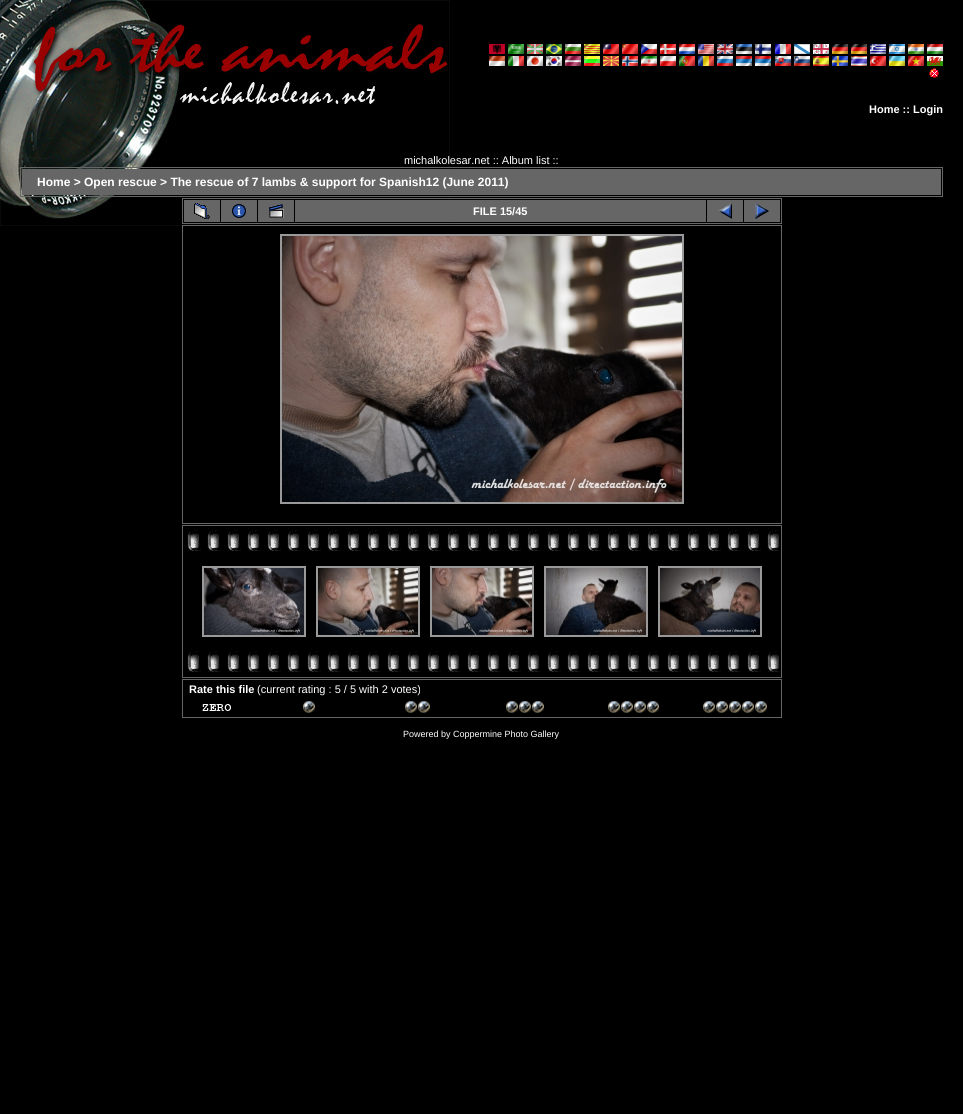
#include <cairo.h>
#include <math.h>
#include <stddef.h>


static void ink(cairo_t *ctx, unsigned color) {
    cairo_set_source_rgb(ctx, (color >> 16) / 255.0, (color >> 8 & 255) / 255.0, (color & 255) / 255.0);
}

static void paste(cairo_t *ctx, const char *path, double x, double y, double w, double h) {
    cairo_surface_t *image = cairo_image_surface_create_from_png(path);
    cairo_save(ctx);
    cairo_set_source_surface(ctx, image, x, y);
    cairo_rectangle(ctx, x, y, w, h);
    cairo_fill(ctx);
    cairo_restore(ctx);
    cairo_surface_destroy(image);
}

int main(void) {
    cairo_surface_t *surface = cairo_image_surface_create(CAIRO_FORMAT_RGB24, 963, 1114);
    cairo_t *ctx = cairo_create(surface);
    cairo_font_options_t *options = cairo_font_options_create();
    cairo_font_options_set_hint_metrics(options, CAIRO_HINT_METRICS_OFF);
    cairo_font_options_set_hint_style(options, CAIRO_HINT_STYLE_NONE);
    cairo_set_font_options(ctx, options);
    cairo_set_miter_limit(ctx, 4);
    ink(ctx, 0x000000);
    cairo_paint(ctx);
    paste(ctx, "media/1.png", 0, 0, 450, 226);
    paste(ctx, "media/2.png", 489, 44, 16, 10);
    paste(ctx, "media/3.png", 508, 44, 16, 10);
    paste(ctx, "media/4.png", 527, 44, 16, 10);
    paste(ctx, "media/5.png", 546, 44, 16, 10);
    paste(ctx, "media/6.png", 565, 44, 16, 10);
    paste(ctx, "media/7.png", 584, 44, 16, 10);
    paste(ctx, "media/8.png", 603, 44, 16, 10);
    paste(ctx, "media/9.png", 622, 44, 16, 10);
    paste(ctx, "media/10.png", 641, 44, 16, 10);
    paste(ctx, "media/11.png", 660, 44, 16, 10);
    paste(ctx, "media/12.png", 679, 44, 16, 10);
    paste(ctx, "media/13.png", 698, 44, 16, 10);
    paste(ctx, "media/14.png", 717, 44, 16, 10);
    paste(ctx, "media/15.png", 736, 44, 16, 10);
    paste(ctx, "media/16.png", 755, 44, 16, 10);
    paste(ctx, "media/17.png", 775, 44, 16, 10);
    paste(ctx, "media/18.png", 794, 44, 16, 10);
    paste(ctx, "media/19.png", 813, 44, 16, 10);
    paste(ctx, "media/20.png", 832, 44, 16, 10);
    paste(ctx, "media/20.png", 851, 44, 16, 10);
    paste(ctx, "media/21.png", 870, 44, 16, 10);
    paste(ctx, "media/22.png", 889, 44, 16, 10);
    paste(ctx, "media/23.png", 908, 44, 16, 10);
    paste(ctx, "media/24.png", 927, 44, 16, 10);
    paste(ctx, "media/25.png", 489, 56, 16, 10);
    paste(ctx, "media/26.png", 508, 56, 16, 10);
    paste(ctx, "media/27.png", 527, 56, 16, 10);
    paste(ctx, "media/28.png", 546, 56, 16, 10);
    paste(ctx, "media/29.png", 565, 56, 16, 10);
    paste(ctx, "media/30.png", 584, 56, 16, 10);
    paste(ctx, "media/31.png", 603, 56, 16, 10);
    paste(ctx, "media/32.png", 622, 56, 16, 10);
    paste(ctx, "media/33.png", 641, 56, 16, 10);
    paste(ctx, "media/34.png", 660, 56, 16, 10);
    paste(ctx, "media/35.png", 679, 56, 16, 10);
    paste(ctx, "media/36.png", 698, 56, 16, 10);
    paste(ctx, "media/37.png", 717, 56, 16, 10);
    paste(ctx, "media/38.png", 736, 56, 16, 10);
    paste(ctx, "media/38.png", 755, 56, 16, 10);
    paste(ctx, "media/39.png", 775, 56, 16, 10);
    paste(ctx, "media/40.png", 794, 56, 16, 10);
    paste(ctx, "media/41.png", 813, 56, 16, 10);
    paste(ctx, "media/42.png", 832, 56, 16, 10);
    paste(ctx, "media/43.png", 851, 56, 16, 10);
    paste(ctx, "media/44.png", 870, 56, 16, 10);
    paste(ctx, "media/45.png", 889, 56, 16, 10);
    paste(ctx, "media/46.png", 908, 56, 16, 10);
    paste(ctx, "media/47.png", 927, 56, 16, 10);
    paste(ctx, "media/48.png", 929, 68, 10, 10);
    cairo_select_font_face(ctx, "Liberation Sans", CAIRO_FONT_SLANT_NORMAL, CAIRO_FONT_WEIGHT_BOLD);
    cairo_set_font_size(ctx, 11);
    ink(ctx, 0xFFFFFF);
    cairo_move_to(ctx, 869, 113);
    cairo_show_text(ctx, "Home :: Login");
    cairo_select_font_face(ctx, "Liberation Sans", CAIRO_FONT_SLANT_NORMAL, CAIRO_FONT_WEIGHT_NORMAL);
    cairo_move_to(ctx, 404, 164);
    cairo_show_text(ctx, "michalkolesar.net :: Album list ::");
    cairo_rectangle(ctx, 20.5, 167.5, 922, 29);
    ink(ctx, 0x666666);
    cairo_set_line_width(ctx, 1);
    cairo_stroke(ctx);
    cairo_rectangle(ctx, 22, 169, 919, 26);
    cairo_fill(ctx);
    cairo_select_font_face(ctx, "Liberation Sans", CAIRO_FONT_SLANT_NORMAL, CAIRO_FONT_WEIGHT_BOLD);
    cairo_set_font_size(ctx, 12);
    ink(ctx, 0xFFFFFF);
    cairo_move_to(ctx, 37, 186);
    cairo_show_text(ctx, "Home > Open rescue > The rescue of 7 lambs & support for Spanish12 (June 2011)");
    cairo_rectangle(ctx, 182.5, 198.5, 599, 25);
    ink(ctx, 0x666666);
    cairo_stroke(ctx);
    cairo_rectangle(ctx, 184, 200, 36, 22);
    cairo_fill(ctx);
    paste(ctx, "media/49.png", 194, 203, 16, 16);
    cairo_rectangle(ctx, 221, 200, 36, 22);
    cairo_fill(ctx);
    paste(ctx, "media/50.png", 232, 204, 14, 14);
    cairo_rectangle(ctx, 258, 200, 36, 22);
    cairo_fill(ctx);
    paste(ctx, "media/51.png", 269, 204, 15, 14);
    cairo_rectangle(ctx, 295, 200, 411, 22);
    cairo_fill(ctx);
    cairo_set_font_size(ctx, 11);
    ink(ctx, 0xFFFFFF);
    cairo_move_to(ctx, 473, 215);
    cairo_show_text(ctx, "FILE 15/45");
    ink(ctx, 0x666666);
    cairo_rectangle(ctx, 707, 200, 36, 22);
    cairo_fill(ctx);
    paste(ctx, "media/52.png", 718, 203, 14, 16);
    cairo_rectangle(ctx, 744, 200, 36, 22);
    cairo_fill(ctx);
    paste(ctx, "media/53.png", 755, 203, 14, 16);
    cairo_rectangle(ctx, 182.5, 225.5, 599, 298);
    cairo_stroke(ctx);
    cairo_rectangle(ctx, 281, 235, 402, 268);
    ink(ctx, 0x999999);
    cairo_set_line_width(ctx, 2);
    cairo_stroke(ctx);
    paste(ctx, "media/54.png", 282, 236, 400, 266);
    cairo_rectangle(ctx, 182.5, 525.5, 599, 152);
    ink(ctx, 0x666666);
    cairo_set_line_width(ctx, 1);
    cairo_stroke(ctx);
    paste(ctx, "media/55.png", 187, 527, 593, 24);
    cairo_rectangle(ctx, 203, 567, 102, 69);
    ink(ctx, 0x999999);
    cairo_set_line_width(ctx, 2);
    cairo_stroke(ctx);
    paste(ctx, "media/56.png", 204, 568, 100, 67);
    cairo_rectangle(ctx, 317, 567, 102, 69);
    cairo_stroke(ctx);
    paste(ctx, "media/57.png", 318, 568, 100, 67);
    cairo_rectangle(ctx, 431, 567, 102, 69);
    cairo_stroke(ctx);
    paste(ctx, "media/58.png", 432, 568, 100, 67);
    cairo_rectangle(ctx, 545, 567, 102, 69);
    cairo_stroke(ctx);
    paste(ctx, "media/59.png", 546, 568, 100, 67);
    cairo_rectangle(ctx, 659, 567, 102, 69);
    cairo_stroke(ctx);
    paste(ctx, "media/60.png", 660, 568, 100, 67);
    paste(ctx, "media/55.png", 187, 648, 593, 24);
    cairo_rectangle(ctx, 182.5, 679.5, 599, 38);
    ink(ctx, 0x666666);
    cairo_set_line_width(ctx, 1);
    cairo_stroke(ctx);
    ink(ctx, 0xFFFFFF);
    cairo_move_to(ctx, 189, 693);
    cairo_show_text(ctx, "Rate this file");
    cairo_select_font_face(ctx, "Liberation Sans", CAIRO_FONT_SLANT_NORMAL, CAIRO_FONT_WEIGHT_NORMAL);
    cairo_move_to(ctx, 257, 693);
    cairo_show_text(ctx, "(current rating : 5 / 5 with 2 votes)");
    paste(ctx, "media/61.png", 202, 704, 29, 7);
    paste(ctx, "media/62.png", 303, 701, 12, 12);
    paste(ctx, "media/63.png", 405, 701, 25, 12);
    paste(ctx, "media/64.png", 506, 701, 38, 12);
    paste(ctx, "media/65.png", 608, 701, 51, 12);
    paste(ctx, "media/66.png", 703, 701, 64, 12);
    cairo_set_font_size(ctx, 9);
    cairo_move_to(ctx, 403, 737);
    cairo_show_text(ctx, "Powered by Coppermine Photo Gallery");
    cairo_surface_write_to_png(surface, "image.png");
    cairo_font_options_destroy(options);
    cairo_destroy(ctx);
    cairo_surface_destroy(surface);
    return 0;
}
